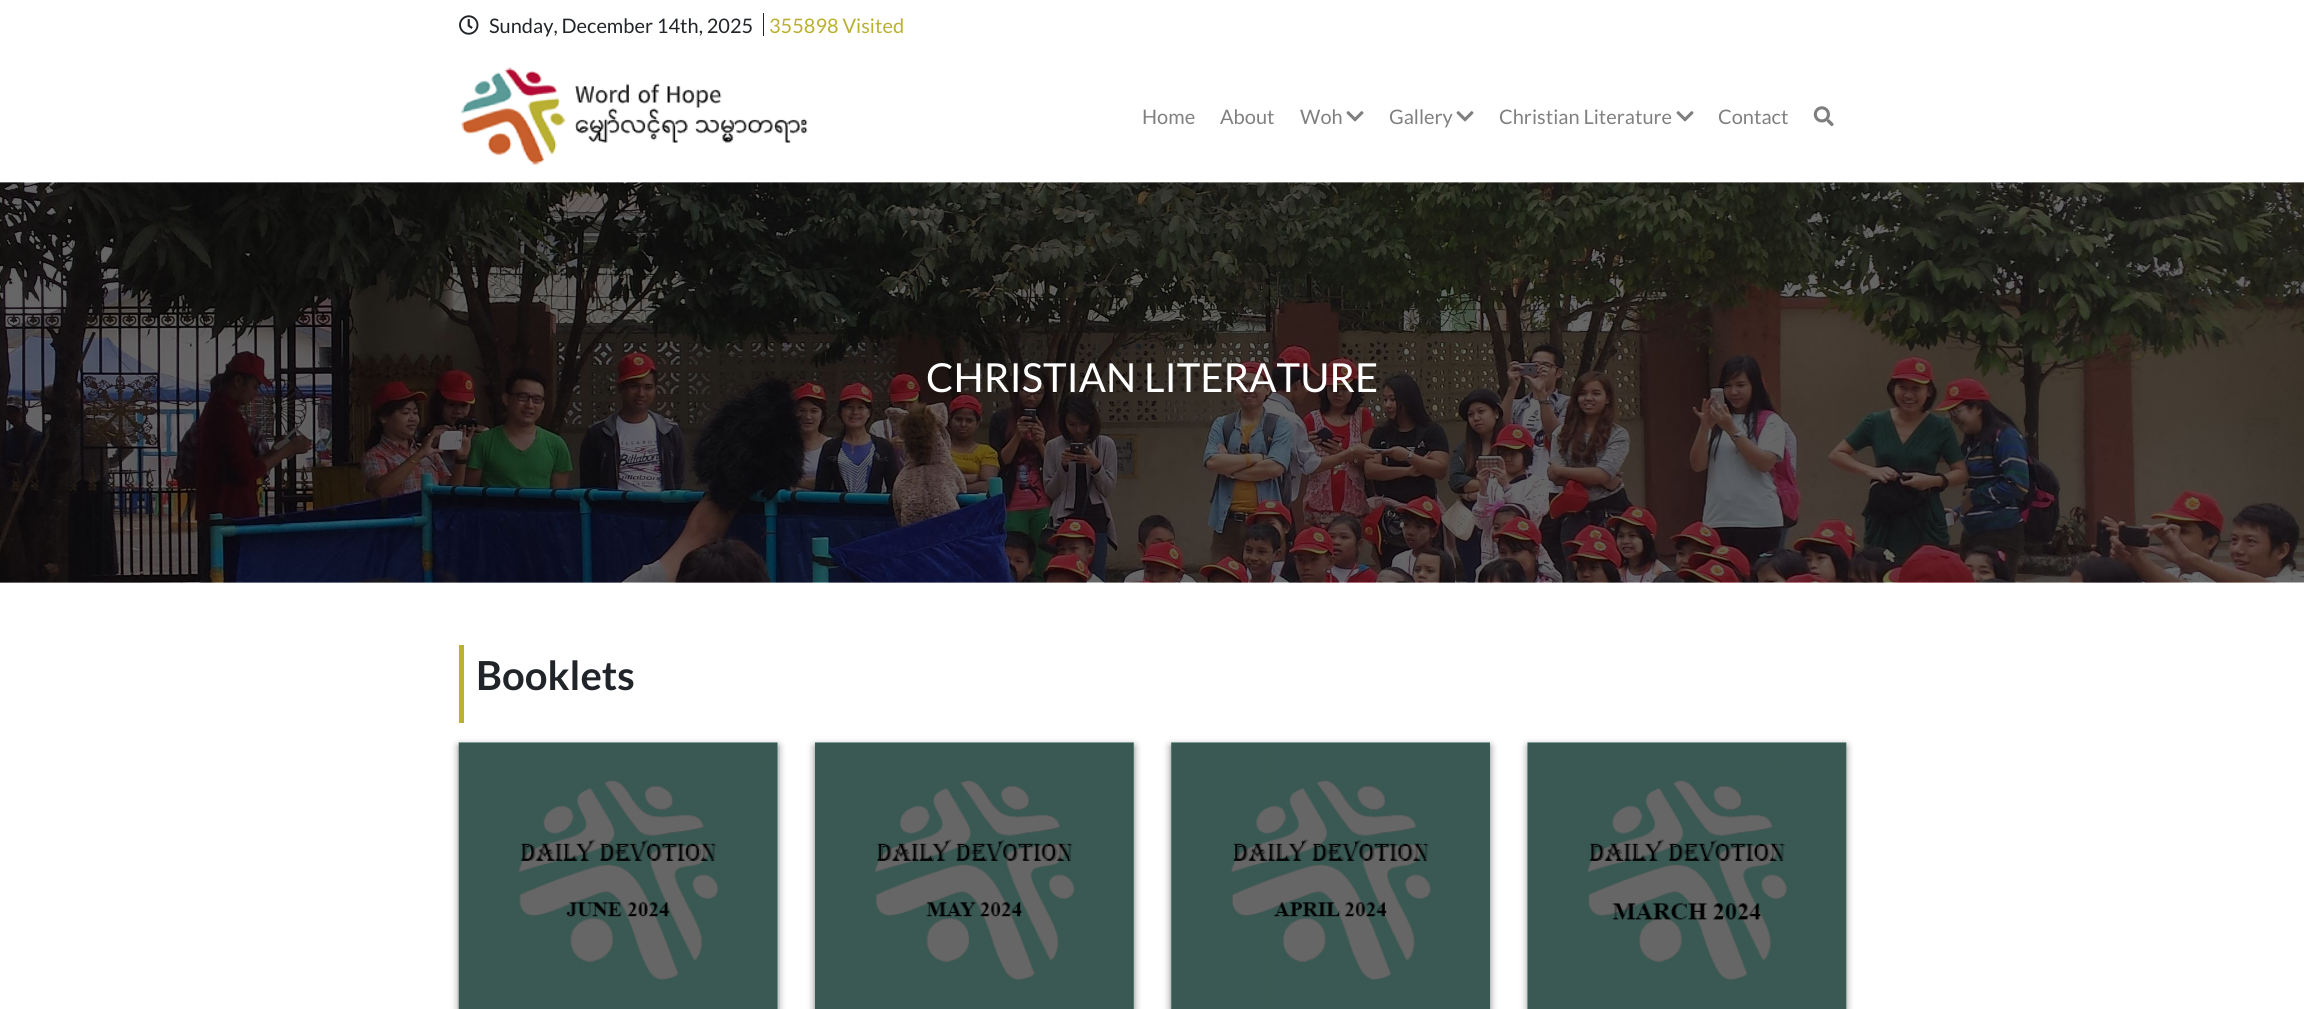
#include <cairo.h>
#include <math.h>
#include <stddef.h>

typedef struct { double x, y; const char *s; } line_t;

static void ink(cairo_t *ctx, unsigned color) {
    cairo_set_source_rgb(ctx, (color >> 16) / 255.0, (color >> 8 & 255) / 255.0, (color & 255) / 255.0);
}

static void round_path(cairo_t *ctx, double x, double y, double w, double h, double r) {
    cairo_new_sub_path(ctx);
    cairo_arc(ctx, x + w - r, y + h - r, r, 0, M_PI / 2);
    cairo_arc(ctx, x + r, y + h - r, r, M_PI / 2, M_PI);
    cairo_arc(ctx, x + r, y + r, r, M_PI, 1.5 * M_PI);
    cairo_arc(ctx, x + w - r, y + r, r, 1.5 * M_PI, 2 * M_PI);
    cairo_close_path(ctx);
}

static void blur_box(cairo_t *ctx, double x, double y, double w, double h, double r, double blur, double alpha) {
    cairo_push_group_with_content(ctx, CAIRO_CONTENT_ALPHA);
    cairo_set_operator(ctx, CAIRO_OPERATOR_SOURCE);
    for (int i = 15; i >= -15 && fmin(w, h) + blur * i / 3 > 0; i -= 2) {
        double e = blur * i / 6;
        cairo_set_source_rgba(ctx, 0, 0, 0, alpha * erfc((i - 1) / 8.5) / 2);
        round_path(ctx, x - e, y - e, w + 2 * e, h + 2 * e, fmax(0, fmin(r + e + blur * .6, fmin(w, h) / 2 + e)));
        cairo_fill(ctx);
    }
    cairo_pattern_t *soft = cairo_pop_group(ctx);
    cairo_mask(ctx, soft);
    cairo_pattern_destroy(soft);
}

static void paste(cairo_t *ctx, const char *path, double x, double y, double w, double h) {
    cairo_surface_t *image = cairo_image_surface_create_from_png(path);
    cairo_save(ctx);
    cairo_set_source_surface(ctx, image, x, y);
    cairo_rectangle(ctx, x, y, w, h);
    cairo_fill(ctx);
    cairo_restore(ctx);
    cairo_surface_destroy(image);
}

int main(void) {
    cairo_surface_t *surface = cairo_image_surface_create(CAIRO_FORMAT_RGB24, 2304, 1009);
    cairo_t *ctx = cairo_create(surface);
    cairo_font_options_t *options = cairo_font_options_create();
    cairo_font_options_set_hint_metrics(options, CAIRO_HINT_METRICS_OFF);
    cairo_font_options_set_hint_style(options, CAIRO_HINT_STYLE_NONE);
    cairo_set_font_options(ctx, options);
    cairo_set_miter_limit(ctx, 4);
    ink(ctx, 0xFFFFFF);
    cairo_paint(ctx);
    paste(ctx, "media/1.png", 459, 15, 20, 20);
    cairo_select_font_face(ctx, "Lato", CAIRO_FONT_SLANT_NORMAL, CAIRO_FONT_WEIGHT_NORMAL);
    cairo_set_font_size(ctx, 20);
    ink(ctx, 0x212529);
    cairo_move_to(ctx, 489, 33);
    cairo_show_text(ctx, "Sunday, December 14th, 2025");
    ink(ctx, 0xBAB032);
    cairo_move_to(ctx, 769, 33);
    cairo_show_text(ctx, "355898 Visited");
    ink(ctx, 0x212529);
    cairo_rectangle(ctx, 763, 13, 1, 23);
    cairo_fill(ctx);
    paste(ctx, "media/2.png", 461, 67, 347, 99);
    ink(ctx, 0x808080);
    {
        static const line_t items[] = {
            {1142, 124, "Home"},
            {1220, 124, "About"},
            {1300, 124, "Woh"},
        };
        for (size_t i = 0; i < sizeof items / sizeof *items; i++) {
            cairo_move_to(ctx, items[i].x, items[i].y);
            cairo_show_text(ctx, items[i].s);
        }
    }
    paste(ctx, "media/3.png", 1346, 111, 18, 11);
    cairo_move_to(ctx, 1389, 124);
    cairo_show_text(ctx, "Gallery");
    paste(ctx, "media/3.png", 1456, 111, 18, 11);
    cairo_move_to(ctx, 1499, 124);
    cairo_show_text(ctx, "Christian Literature");
    paste(ctx, "media/3.png", 1676, 111, 18, 11);
    cairo_move_to(ctx, 1718, 124);
    cairo_show_text(ctx, "Contact");
    paste(ctx, "media/4.png", 1813, 106, 21, 21);
    paste(ctx, "media/5.png", 0, 182, 2304, 401);
    cairo_set_font_size(ctx, 40);
    ink(ctx, 0xFFFFFF);
    cairo_move_to(ctx, 926, 392);
    cairo_show_text(ctx, "CHRISTIAN LITERATURE");
    ink(ctx, 0xBAB032);
    cairo_rectangle(ctx, 459, 645, 5, 78);
    cairo_fill(ctx);
    cairo_select_font_face(ctx, "Lato", CAIRO_FONT_SLANT_NORMAL, CAIRO_FONT_WEIGHT_BOLD);
    ink(ctx, 0x212529);
    cairo_move_to(ctx, 476, 690);
    cairo_show_text(ctx, "Booklets");
    ink(ctx, 0x000000);
    blur_box(ctx, 459, 746, 319, 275, 0, 4, 0.5);
    paste(ctx, "media/6.png", 458, 742, 320, 267);
    blur_box(ctx, 815, 746, 319, 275, 0, 4, 0.5);
    paste(ctx, "media/7.png", 815, 742, 319, 267);
    blur_box(ctx, 1171, 746, 319, 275, 0, 4, 0.5);
    paste(ctx, "media/8.png", 1171, 742, 319, 267);
    blur_box(ctx, 1528, 746, 318, 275, 0, 4, 0.5);
    paste(ctx, "media/9.png", 1527, 742, 320, 267);
    cairo_surface_write_to_png(surface, "image.png");
    cairo_font_options_destroy(options);
    cairo_destroy(ctx);
    cairo_surface_destroy(surface);
    return 0;
}
